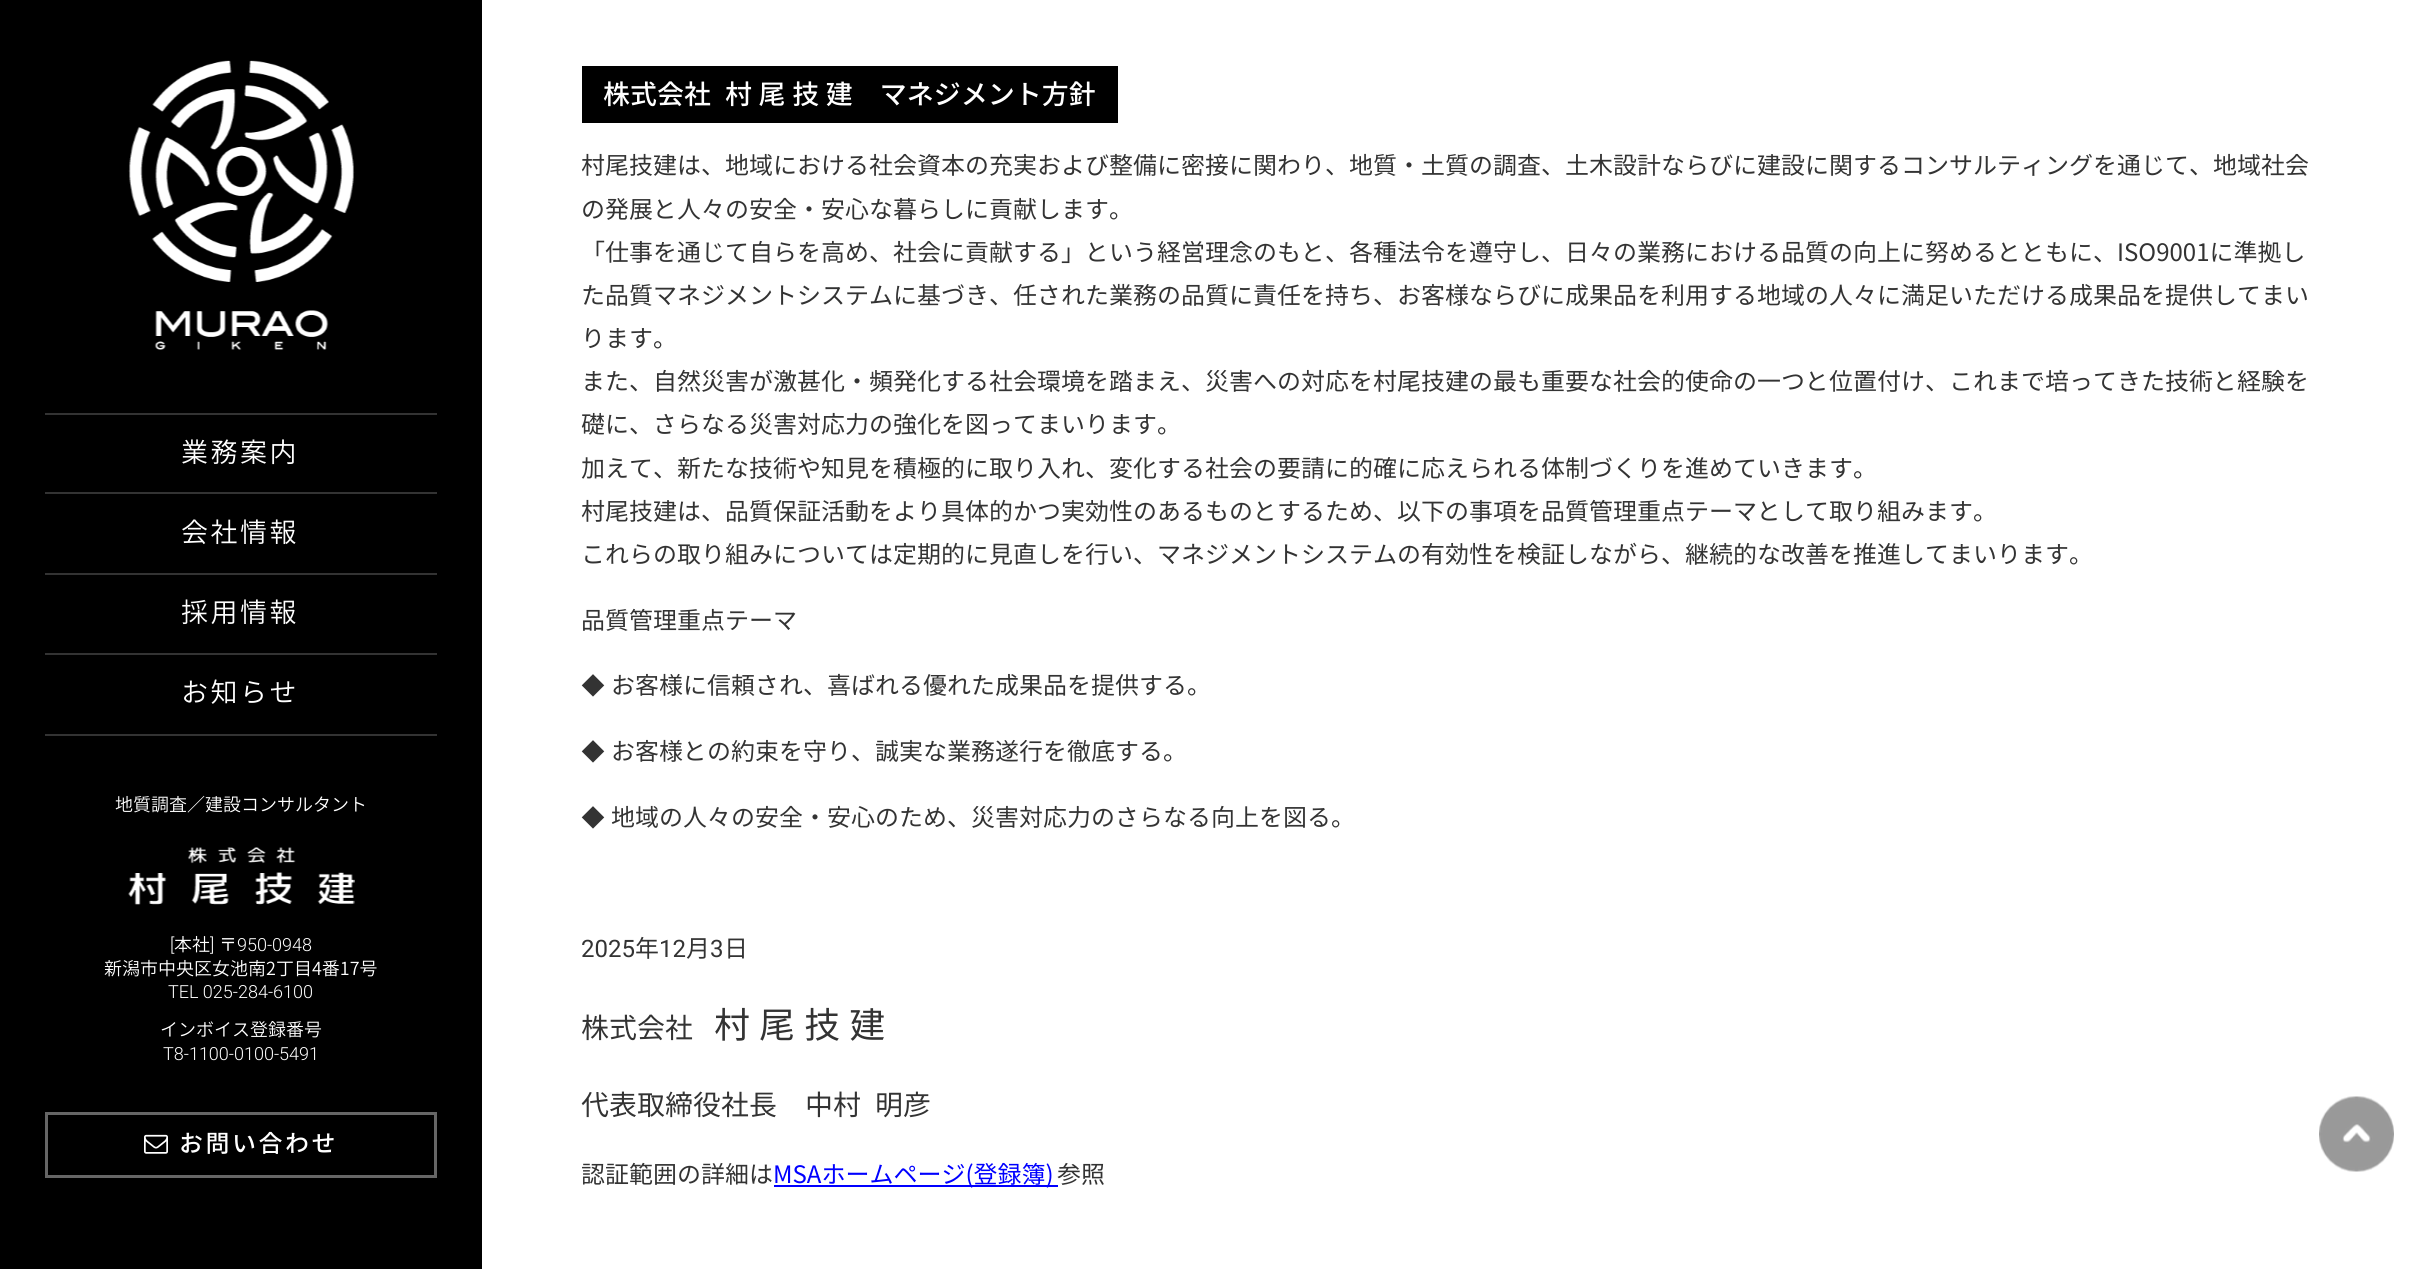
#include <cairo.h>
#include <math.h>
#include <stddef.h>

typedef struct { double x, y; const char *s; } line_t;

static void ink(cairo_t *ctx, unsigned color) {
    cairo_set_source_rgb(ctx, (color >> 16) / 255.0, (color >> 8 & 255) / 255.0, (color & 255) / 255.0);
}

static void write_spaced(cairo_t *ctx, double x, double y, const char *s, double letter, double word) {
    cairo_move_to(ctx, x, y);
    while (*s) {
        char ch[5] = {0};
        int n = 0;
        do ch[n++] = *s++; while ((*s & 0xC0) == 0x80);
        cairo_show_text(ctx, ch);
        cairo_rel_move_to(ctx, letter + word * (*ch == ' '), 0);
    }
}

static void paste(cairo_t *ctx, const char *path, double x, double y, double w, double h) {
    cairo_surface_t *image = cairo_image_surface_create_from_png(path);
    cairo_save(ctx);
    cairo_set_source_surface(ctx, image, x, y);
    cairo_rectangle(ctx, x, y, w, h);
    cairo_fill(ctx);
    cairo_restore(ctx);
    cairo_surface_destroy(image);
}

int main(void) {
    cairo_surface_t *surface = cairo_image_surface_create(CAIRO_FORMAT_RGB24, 2409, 1269);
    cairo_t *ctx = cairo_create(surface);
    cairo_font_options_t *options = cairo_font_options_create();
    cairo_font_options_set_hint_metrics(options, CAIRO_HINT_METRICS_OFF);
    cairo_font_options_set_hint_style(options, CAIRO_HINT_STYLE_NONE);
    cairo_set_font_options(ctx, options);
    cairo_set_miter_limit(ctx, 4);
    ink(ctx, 0x000000);
    cairo_paint(ctx);
    paste(ctx, "media/1.png", 128, 60, 227, 290);
    ink(ctx, 0x333333);
    cairo_rectangle(ctx, 45, 413, 392, 2);
    cairo_fill(ctx);
    cairo_rectangle(ctx, 45, 492, 392, 2);
    cairo_fill(ctx);
    cairo_select_font_face(ctx, "Noto Sans JP Light", CAIRO_FONT_SLANT_NORMAL, CAIRO_FONT_WEIGHT_NORMAL);
    cairo_set_font_size(ctx, 27);
    ink(ctx, 0xFFFFFF);
    write_spaced(ctx, 181, 462, "業務案内", 2.5, 0);
    ink(ctx, 0x333333);
    cairo_rectangle(ctx, 45, 573, 392, 2);
    cairo_fill(ctx);
    ink(ctx, 0xFFFFFF);
    write_spaced(ctx, 181, 542, "会社情報", 2.5, 0);
    ink(ctx, 0x333333);
    cairo_rectangle(ctx, 45, 653, 392, 2);
    cairo_fill(ctx);
    ink(ctx, 0xFFFFFF);
    write_spaced(ctx, 181, 622, "採用情報", 2.5, 0);
    ink(ctx, 0x333333);
    cairo_rectangle(ctx, 45, 734, 392, 2);
    cairo_fill(ctx);
    ink(ctx, 0xFFFFFF);
    write_spaced(ctx, 181, 702, "お知らせ", 2.5, 0);
    cairo_set_font_size(ctx, 18);
    cairo_move_to(ctx, 115, 811);
    cairo_show_text(ctx, "地質調査／建設コンサルタント");
    paste(ctx, "media/2.png", 128, 847, 227, 58);
    cairo_select_font_face(ctx, "Roboto Light", CAIRO_FONT_SLANT_NORMAL, CAIRO_FONT_WEIGHT_NORMAL);
    cairo_move_to(ctx, 170, 951);
    cairo_show_text(ctx, "[");
    cairo_select_font_face(ctx, "Noto Sans JP Light", CAIRO_FONT_SLANT_NORMAL, CAIRO_FONT_WEIGHT_NORMAL);
    cairo_move_to(ctx, 174, 951);
    cairo_show_text(ctx, "本社");
    cairo_select_font_face(ctx, "Roboto Light", CAIRO_FONT_SLANT_NORMAL, CAIRO_FONT_WEIGHT_NORMAL);
    cairo_move_to(ctx, 210, 951);
    cairo_show_text(ctx, "]");
    cairo_select_font_face(ctx, "Noto Sans JP Light", CAIRO_FONT_SLANT_NORMAL, CAIRO_FONT_WEIGHT_NORMAL);
    cairo_move_to(ctx, 219, 951);
    cairo_show_text(ctx, "〒");
    cairo_select_font_face(ctx, "Roboto Light", CAIRO_FONT_SLANT_NORMAL, CAIRO_FONT_WEIGHT_NORMAL);
    cairo_move_to(ctx, 237, 951);
    cairo_show_text(ctx, "950-0948");
    cairo_select_font_face(ctx, "Noto Sans JP Light", CAIRO_FONT_SLANT_NORMAL, CAIRO_FONT_WEIGHT_NORMAL);
    cairo_move_to(ctx, 104, 975);
    cairo_show_text(ctx, "新潟市中央区女池南2丁目4番17号");
    cairo_select_font_face(ctx, "Roboto Light", CAIRO_FONT_SLANT_NORMAL, CAIRO_FONT_WEIGHT_NORMAL);
    cairo_move_to(ctx, 168, 998);
    cairo_show_text(ctx, "TEL 025-284-6100");
    cairo_select_font_face(ctx, "Noto Sans JP Light", CAIRO_FONT_SLANT_NORMAL, CAIRO_FONT_WEIGHT_NORMAL);
    cairo_move_to(ctx, 160, 1036);
    cairo_show_text(ctx, "インボイス登録番号");
    cairo_select_font_face(ctx, "Roboto Light", CAIRO_FONT_SLANT_NORMAL, CAIRO_FONT_WEIGHT_NORMAL);
    cairo_move_to(ctx, 163, 1060);
    cairo_show_text(ctx, "T8-1100-0100-5491");
    cairo_rectangle(ctx, 46.5, 1113.5, 389, 63);
    ink(ctx, 0x666666);
    cairo_set_line_width(ctx, 3);
    cairo_stroke(ctx);
    paste(ctx, "media/3.png", 144, 1134, 24, 20);
    cairo_select_font_face(ctx, "Noto Sans JP Medium", CAIRO_FONT_SLANT_NORMAL, CAIRO_FONT_WEIGHT_NORMAL);
    cairo_set_font_size(ctx, 24);
    ink(ctx, 0xFFFFFF);
    write_spaced(ctx, 179, 1152, "お問い合わせ", 2.5, 0);
    cairo_rectangle(ctx, 482, 0, 1927, 1269);
    cairo_fill(ctx);
    ink(ctx, 0x000000);
    cairo_rectangle(ctx, 582, 66, 536, 57);
    cairo_fill(ctx);
    cairo_set_font_size(ctx, 27);
    ink(ctx, 0xFFFFFF);
    cairo_move_to(ctx, 603, 104);
    cairo_show_text(ctx, "株式会社");
    write_spaced(ctx, 725, 104, "村 尾 技 建　マネジメント方針", 0, 0.5);
    cairo_select_font_face(ctx, "Noto Sans JP", CAIRO_FONT_SLANT_NORMAL, CAIRO_FONT_WEIGHT_NORMAL);
    cairo_set_font_size(ctx, 24);
    ink(ctx, 0x333333);
    {
        static const line_t items[] = {
            {581, 174, "村尾技建は、地域における社会資本の充実および整備に密接に関わり、地質・土質の調査、土木設計ならびに建設に関するコンサルティングを通じて、地域社会"},
            {581, 218, "の発展と人々の安全・安心な暮らしに貢献します。"},
            {581, 261, "「仕事を通じて自らを高め、社会に貢献する」という経営理念のもと、各種法令を遵守し、日々の業務における品質の向上に努めるとともに、ISO9001に準拠し"},
            {581, 304, "た品質マネジメントシステムに基づき、任された業務の品質に責任を持ち、お客様ならびに成果品を利用する地域の人々に満足いただける成果品を提供してまい"},
            {581, 347, "ります。"},
            {581, 390, "また、自然災害が激甚化・頻発化する社会環境を踏まえ、災害への対応を村尾技建の最も重要な社会的使命の一つと位置付け、これまで培ってきた技術と経験を"},
            {581, 433, "礎に、さらなる災害対応力の強化を図ってまいります。"},
            {581, 477, "加えて、新たな技術や知見を積極的に取り入れ、変化する社会の要請に的確に応えられる体制づくりを進めていきます。"},
            {581, 520, "村尾技建は、品質保証活動をより具体的かつ実効性のあるものとするため、以下の事項を品質管理重点テーマとして取り組みます。"},
            {581, 563, "これらの取り組みについては定期的に見直しを行い、マネジメントシステムの有効性を検証しながら、継続的な改善を推進してまいります。"},
            {581, 629, "品質管理重点テーマ"},
        };
        for (size_t i = 0; i < sizeof items / sizeof *items; i++) {
            cairo_move_to(ctx, items[i].x, items[i].y);
            cairo_show_text(ctx, items[i].s);
        }
    }
    cairo_select_font_face(ctx, "WenQuanYi Zen Hei Medium", CAIRO_FONT_SLANT_NORMAL, CAIRO_FONT_WEIGHT_NORMAL);
    cairo_move_to(ctx, 581, 694);
    cairo_show_text(ctx, "◆");
    cairo_select_font_face(ctx, "Noto Sans JP", CAIRO_FONT_SLANT_NORMAL, CAIRO_FONT_WEIGHT_NORMAL);
    cairo_move_to(ctx, 611, 694);
    cairo_show_text(ctx, "お客様に信頼され、喜ばれる優れた成果品を提供する。");
    cairo_select_font_face(ctx, "WenQuanYi Zen Hei Medium", CAIRO_FONT_SLANT_NORMAL, CAIRO_FONT_WEIGHT_NORMAL);
    cairo_move_to(ctx, 581, 760);
    cairo_show_text(ctx, "◆");
    cairo_select_font_face(ctx, "Noto Sans JP", CAIRO_FONT_SLANT_NORMAL, CAIRO_FONT_WEIGHT_NORMAL);
    cairo_move_to(ctx, 611, 760);
    cairo_show_text(ctx, "お客様との約束を守り、誠実な業務遂行を徹底する。");
    cairo_select_font_face(ctx, "WenQuanYi Zen Hei Medium", CAIRO_FONT_SLANT_NORMAL, CAIRO_FONT_WEIGHT_NORMAL);
    cairo_move_to(ctx, 581, 826);
    cairo_show_text(ctx, "◆");
    cairo_select_font_face(ctx, "Noto Sans JP", CAIRO_FONT_SLANT_NORMAL, CAIRO_FONT_WEIGHT_NORMAL);
    cairo_move_to(ctx, 611, 826);
    cairo_show_text(ctx, "地域の人々の安全・安心のため、災害対応力のさらなる向上を図る。");
    cairo_select_font_face(ctx, "Roboto", CAIRO_FONT_SLANT_NORMAL, CAIRO_FONT_WEIGHT_NORMAL);
    cairo_move_to(ctx, 581, 957);
    cairo_show_text(ctx, "2025");
    cairo_select_font_face(ctx, "Noto Sans JP", CAIRO_FONT_SLANT_NORMAL, CAIRO_FONT_WEIGHT_NORMAL);
    cairo_move_to(ctx, 635, 957);
    cairo_show_text(ctx, "年");
    cairo_select_font_face(ctx, "Roboto", CAIRO_FONT_SLANT_NORMAL, CAIRO_FONT_WEIGHT_NORMAL);
    cairo_move_to(ctx, 659, 957);
    cairo_show_text(ctx, "12");
    cairo_select_font_face(ctx, "Noto Sans JP", CAIRO_FONT_SLANT_NORMAL, CAIRO_FONT_WEIGHT_NORMAL);
    cairo_move_to(ctx, 686, 957);
    cairo_show_text(ctx, "月");
    cairo_select_font_face(ctx, "Roboto", CAIRO_FONT_SLANT_NORMAL, CAIRO_FONT_WEIGHT_NORMAL);
    cairo_move_to(ctx, 710, 957);
    cairo_show_text(ctx, "3");
    cairo_select_font_face(ctx, "Noto Sans JP", CAIRO_FONT_SLANT_NORMAL, CAIRO_FONT_WEIGHT_NORMAL);
    cairo_move_to(ctx, 724, 957);
    cairo_show_text(ctx, "日");
    cairo_set_font_size(ctx, 28);
    cairo_move_to(ctx, 581, 1038);
    cairo_show_text(ctx, "株式会社");
    cairo_set_font_size(ctx, 36);
    write_spaced(ctx, 714, 1038, "村 尾 技 建", 0, 1);
    cairo_set_font_size(ctx, 28);
    cairo_move_to(ctx, 581, 1115);
    cairo_show_text(ctx, "代表取締役社長　中村");
    cairo_move_to(ctx, 875, 1115);
    cairo_show_text(ctx, "明彦");
    cairo_set_font_size(ctx, 24);
    cairo_move_to(ctx, 581, 1183);
    cairo_show_text(ctx, "認証範囲の詳細は");
    ink(ctx, 0x0000FF);
    cairo_rectangle(ctx, 774, 1185, 284, 2);
    cairo_fill(ctx);
    cairo_move_to(ctx, 773, 1183);
    cairo_show_text(ctx, "MSAホームページ(登録簿)");
    ink(ctx, 0x333333);
    cairo_move_to(ctx, 1057, 1183);
    cairo_show_text(ctx, "参照");
    paste(ctx, "media/4.png", 2319, 1096, 75, 76);
    cairo_surface_write_to_png(surface, "image.png");
    cairo_font_options_destroy(options);
    cairo_destroy(ctx);
    cairo_surface_destroy(surface);
    return 0;
}
